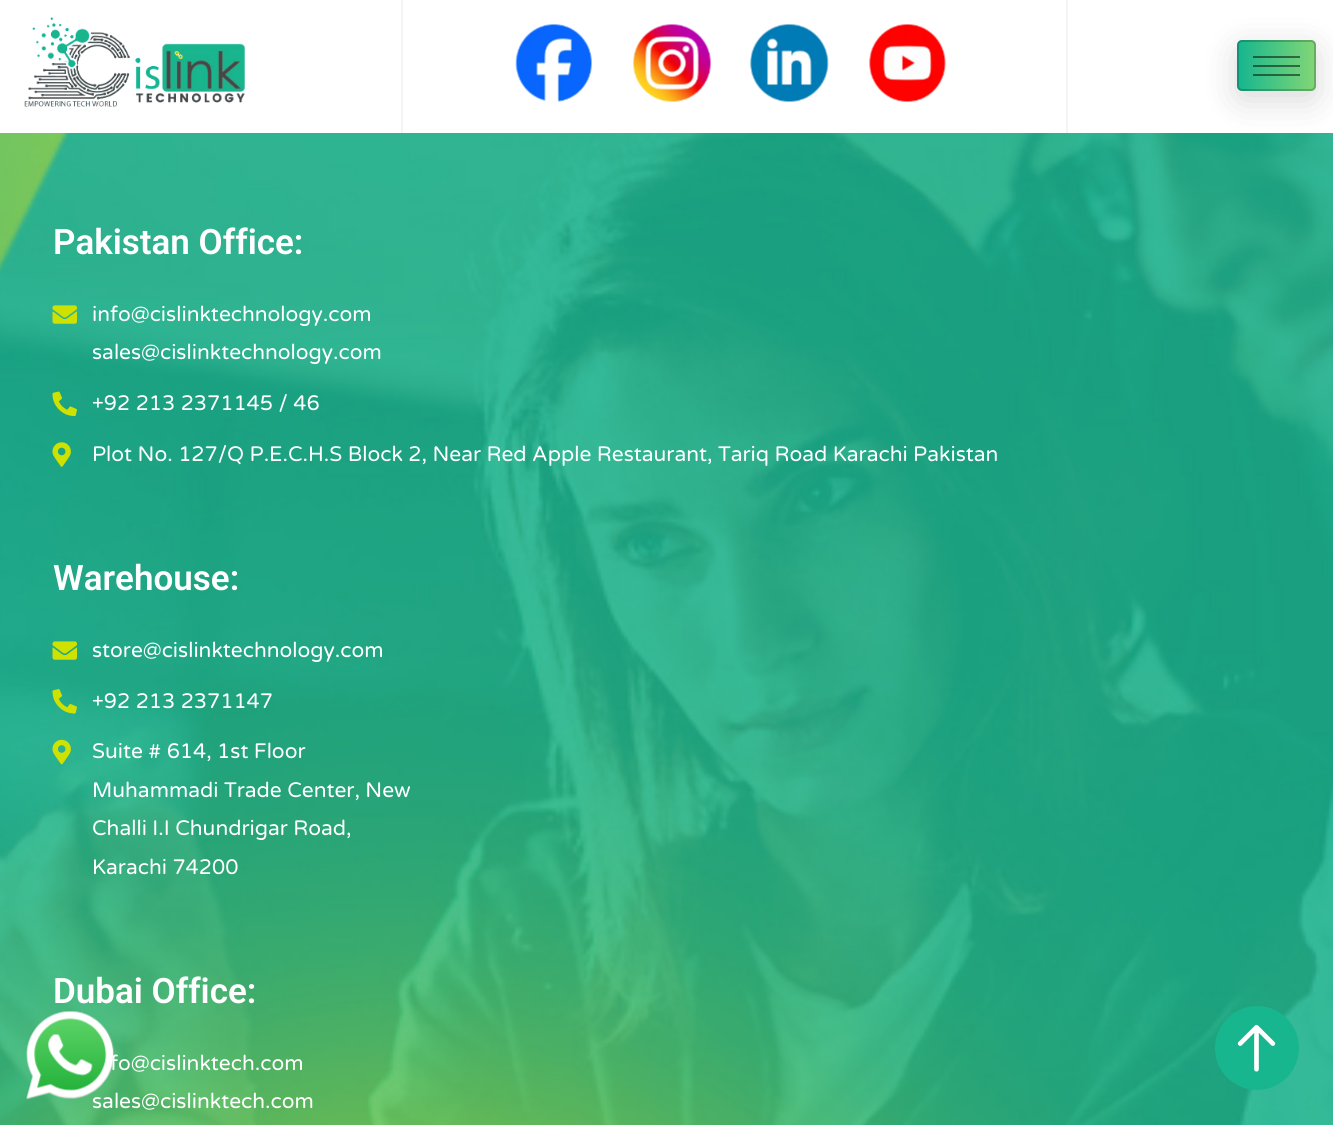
#include <cairo.h>
#include <math.h>
#include <stddef.h>

typedef struct { double x, y; const char *s; } line_t;

static void ink(cairo_t *ctx, unsigned color) {
    cairo_set_source_rgb(ctx, (color >> 16) / 255.0, (color >> 8 & 255) / 255.0, (color & 255) / 255.0);
}

static void round_path(cairo_t *ctx, double x, double y, double w, double h, double r) {
    cairo_new_sub_path(ctx);
    cairo_arc(ctx, x + w - r, y + h - r, r, 0, M_PI / 2);
    cairo_arc(ctx, x + r, y + h - r, r, M_PI / 2, M_PI);
    cairo_arc(ctx, x + r, y + r, r, M_PI, 1.5 * M_PI);
    cairo_arc(ctx, x + w - r, y + r, r, 1.5 * M_PI, 2 * M_PI);
    cairo_close_path(ctx);
}

static void blur_box(cairo_t *ctx, double x, double y, double w, double h, double r, double blur, double alpha) {
    cairo_push_group_with_content(ctx, CAIRO_CONTENT_ALPHA);
    cairo_set_operator(ctx, CAIRO_OPERATOR_SOURCE);
    for (int i = 15; i >= -15 && fmin(w, h) + blur * i / 3 > 0; i -= 2) {
        double e = blur * i / 6;
        cairo_set_source_rgba(ctx, 0, 0, 0, alpha * erfc((i - 1) / 8.5) / 2);
        round_path(ctx, x - e, y - e, w + 2 * e, h + 2 * e, fmax(0, fmin(r + e + blur * .6, fmin(w, h) / 2 + e)));
        cairo_fill(ctx);
    }
    cairo_pattern_t *soft = cairo_pop_group(ctx);
    cairo_mask(ctx, soft);
    cairo_pattern_destroy(soft);
}

static void paste(cairo_t *ctx, const char *path, double x, double y, double w, double h) {
    cairo_surface_t *image = cairo_image_surface_create_from_png(path);
    cairo_save(ctx);
    cairo_set_source_surface(ctx, image, x, y);
    cairo_rectangle(ctx, x, y, w, h);
    cairo_fill(ctx);
    cairo_restore(ctx);
    cairo_surface_destroy(image);
}

int main(void) {
    cairo_surface_t *surface = cairo_image_surface_create(CAIRO_FORMAT_RGB24, 1333, 1125);
    cairo_t *ctx = cairo_create(surface);
    cairo_font_options_t *options = cairo_font_options_create();
    cairo_font_options_set_hint_metrics(options, CAIRO_HINT_METRICS_OFF);
    cairo_font_options_set_hint_style(options, CAIRO_HINT_STYLE_NONE);
    cairo_set_font_options(ctx, options);
    cairo_set_miter_limit(ctx, 4);
    cairo_pattern_t *gradient;
    ink(ctx, 0xFFFFFF);
    cairo_paint(ctx);
    paste(ctx, "media/1.png", 24, 17, 221, 90);
    ink(ctx, 0xF4F4F4);
    cairo_rectangle(ctx, 1066, 0, 2, 133);
    cairo_fill(ctx);
    cairo_rectangle(ctx, 401, 0, 2, 133);
    cairo_fill(ctx);
    paste(ctx, "media/2.png", 515, 24, 77, 78);
    paste(ctx, "media/3.png", 633, 24, 78, 78);
    paste(ctx, "media/4.png", 750, 24, 79, 78);
    paste(ctx, "media/5.png", 869, 24, 77, 78);
    paste(ctx, "media/6.png", 0, 133, 1333, 992);
    ink(ctx, 0x000000);
    blur_box(ctx, 1237, 49, 79, 51, 5, 17.5, 0.15);
    cairo_save(ctx);
    round_path(ctx, 1237, 40, 79, 51, 5);
    cairo_clip(ctx);
    gradient = cairo_pattern_create_linear(1089, 66, 1239, 66);
    cairo_pattern_add_color_stop_rgba(gradient, 0, 0.09, 0.714, 0.557, 1);
    cairo_pattern_add_color_stop_rgba(gradient, 0.51, 0.514, 0.843, 0.463, 1);
    cairo_pattern_add_color_stop_rgba(gradient, 1, 0.09, 0.714, 0.557, 1);
    cairo_set_source(ctx, gradient);
    cairo_pattern_destroy(gradient);
    cairo_rectangle(ctx, 1237, 40, 2, 51);
    cairo_fill(ctx);
    gradient = cairo_pattern_create_linear(1239, 66, 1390, 66);
    cairo_pattern_add_color_stop_rgba(gradient, 0, 0.09, 0.714, 0.557, 1);
    cairo_pattern_add_color_stop_rgba(gradient, 0.51, 0.514, 0.843, 0.463, 1);
    cairo_pattern_add_color_stop_rgba(gradient, 1, 0.09, 0.714, 0.557, 1);
    cairo_set_source(ctx, gradient);
    cairo_pattern_destroy(gradient);
    cairo_new_path(ctx);
    cairo_move_to(ctx, 1239, 40);
    cairo_line_to(ctx, 1311, 40);
    cairo_curve_to(ctx, 1314, 40, 1316, 42, 1316, 45);
    cairo_line_to(ctx, 1316, 86);
    cairo_curve_to(ctx, 1316, 89, 1314, 91, 1311, 91);
    cairo_line_to(ctx, 1239, 91);
    cairo_close_path(ctx);
    cairo_fill(ctx);
    cairo_restore(ctx);
    round_path(ctx, 1238, 41, 77, 49, 4);
    cairo_set_source_rgba(ctx, 0, 0, 0, 0.2);
    cairo_stroke(ctx);
    cairo_set_source_rgba(ctx, 0, 0, 0, 0.5);
    cairo_rectangle(ctx, 1253, 56, 47, 2);
    cairo_fill(ctx);
    cairo_rectangle(ctx, 1253, 65, 47, 2);
    cairo_fill(ctx);
    cairo_rectangle(ctx, 1253, 74, 47, 2);
    cairo_fill(ctx);
    cairo_select_font_face(ctx, "Roboto SemiBold", CAIRO_FONT_SLANT_NORMAL, CAIRO_FONT_WEIGHT_NORMAL);
    cairo_set_font_size(ctx, 35);
    ink(ctx, 0xFFFFFF);
    cairo_move_to(ctx, 53, 254);
    cairo_show_text(ctx, "Pakistan Office:");
    paste(ctx, "media/7.png", 52, 305, 25, 19);
    cairo_select_font_face(ctx, "Varela Round", CAIRO_FONT_SLANT_NORMAL, CAIRO_FONT_WEIGHT_NORMAL);
    cairo_set_font_size(ctx, 21);
    cairo_move_to(ctx, 92, 321);
    cairo_show_text(ctx, "info@cislinktechnology.com");
    cairo_move_to(ctx, 92, 359);
    cairo_show_text(ctx, "sales@cislinktechnology.com");
    paste(ctx, "media/8.png", 52, 391, 25, 26);
    cairo_move_to(ctx, 92, 410);
    cairo_show_text(ctx, "+92 213 2371145 / 46");
    paste(ctx, "media/9.png", 52, 442, 19, 25);
    cairo_move_to(ctx, 92, 461);
    cairo_show_text(ctx, "Plot No. 127/Q P.E.C.H.S Block 2, Near Red Apple Restaurant, Tariq Road Karachi Pakistan");
    cairo_select_font_face(ctx, "Roboto SemiBold", CAIRO_FONT_SLANT_NORMAL, CAIRO_FONT_WEIGHT_NORMAL);
    cairo_set_font_size(ctx, 35);
    cairo_move_to(ctx, 53, 590);
    cairo_show_text(ctx, "Warehouse:");
    paste(ctx, "media/10.png", 52, 641, 25, 19);
    cairo_select_font_face(ctx, "Varela Round", CAIRO_FONT_SLANT_NORMAL, CAIRO_FONT_WEIGHT_NORMAL);
    cairo_set_font_size(ctx, 21);
    cairo_move_to(ctx, 92, 657);
    cairo_show_text(ctx, "store@cislinktechnology.com");
    paste(ctx, "media/11.png", 52, 689, 25, 25);
    cairo_move_to(ctx, 92, 708);
    cairo_show_text(ctx, "+92 213 2371147");
    paste(ctx, "media/12.png", 52, 739, 19, 26);
    {
        static const line_t items[] = {
            {92, 758, "Suite # 614, 1st Floor"},
            {92, 797, "Muhammadi Trade Center, New"},
            {92, 835, "Challi I.I Chundrigar Road,"},
            {92, 874, "Karachi 74200"},
        };
        for (size_t i = 0; i < sizeof items / sizeof *items; i++) {
            cairo_move_to(ctx, items[i].x, items[i].y);
            cairo_show_text(ctx, items[i].s);
        }
    }
    cairo_select_font_face(ctx, "Roboto SemiBold", CAIRO_FONT_SLANT_NORMAL, CAIRO_FONT_WEIGHT_NORMAL);
    cairo_set_font_size(ctx, 35);
    cairo_move_to(ctx, 53, 1003);
    cairo_show_text(ctx, "Dubai Office:");
    cairo_select_font_face(ctx, "Varela Round", CAIRO_FONT_SLANT_NORMAL, CAIRO_FONT_WEIGHT_NORMAL);
    cairo_set_font_size(ctx, 21);
    cairo_move_to(ctx, 110, 1070);
    cairo_show_text(ctx, "fo@cislinktech.com");
    cairo_move_to(ctx, 92, 1108);
    cairo_show_text(ctx, "sales@cislinktech.com");
    ink(ctx, 0x17B68E);
    cairo_new_path(ctx);
    cairo_arc(ctx, 1257, 1048, 42, 0, 2 * M_PI);
    cairo_fill(ctx);
    paste(ctx, "media/13.png", 1237, 1024, 39, 48);
    paste(ctx, "media/14.png", 26, 1011, 88, 89);
    cairo_surface_write_to_png(surface, "image.png");
    cairo_font_options_destroy(options);
    cairo_destroy(ctx);
    cairo_surface_destroy(surface);
    return 0;
}
